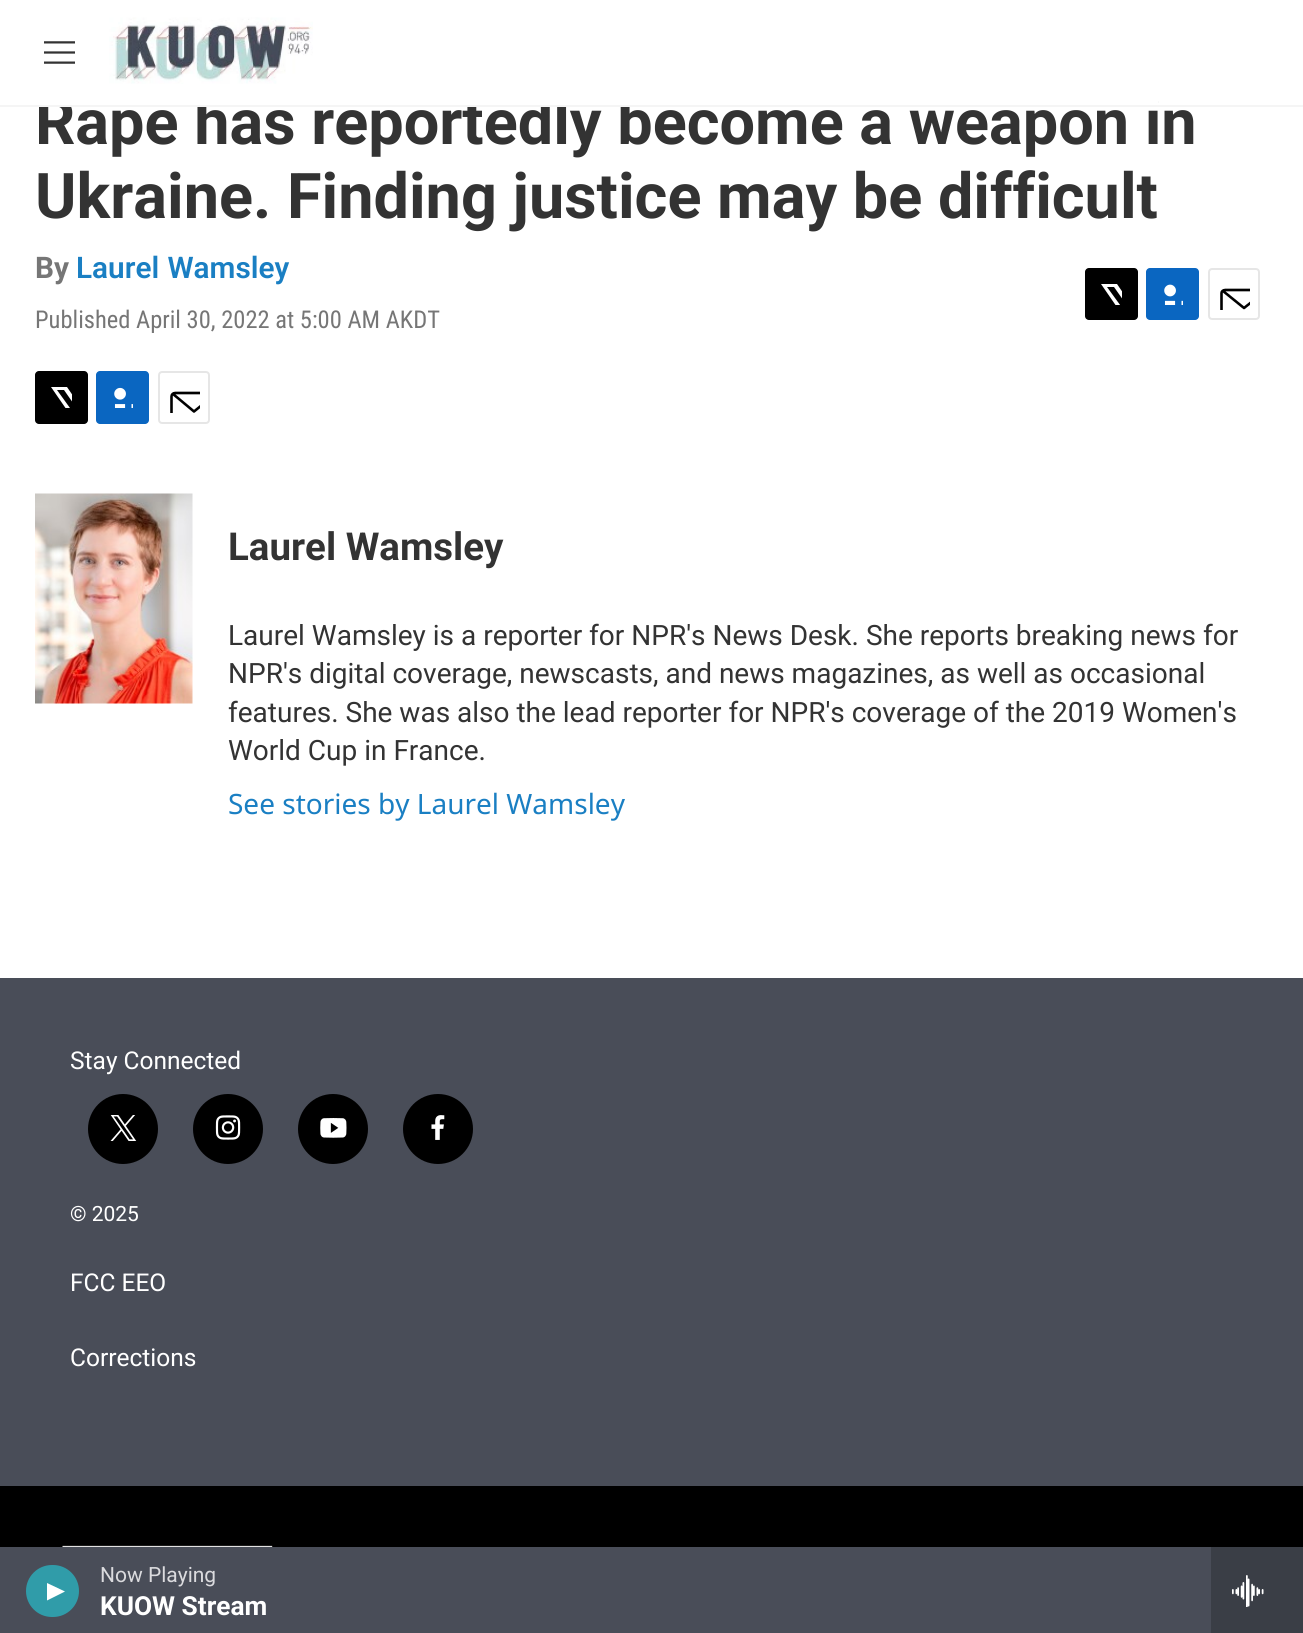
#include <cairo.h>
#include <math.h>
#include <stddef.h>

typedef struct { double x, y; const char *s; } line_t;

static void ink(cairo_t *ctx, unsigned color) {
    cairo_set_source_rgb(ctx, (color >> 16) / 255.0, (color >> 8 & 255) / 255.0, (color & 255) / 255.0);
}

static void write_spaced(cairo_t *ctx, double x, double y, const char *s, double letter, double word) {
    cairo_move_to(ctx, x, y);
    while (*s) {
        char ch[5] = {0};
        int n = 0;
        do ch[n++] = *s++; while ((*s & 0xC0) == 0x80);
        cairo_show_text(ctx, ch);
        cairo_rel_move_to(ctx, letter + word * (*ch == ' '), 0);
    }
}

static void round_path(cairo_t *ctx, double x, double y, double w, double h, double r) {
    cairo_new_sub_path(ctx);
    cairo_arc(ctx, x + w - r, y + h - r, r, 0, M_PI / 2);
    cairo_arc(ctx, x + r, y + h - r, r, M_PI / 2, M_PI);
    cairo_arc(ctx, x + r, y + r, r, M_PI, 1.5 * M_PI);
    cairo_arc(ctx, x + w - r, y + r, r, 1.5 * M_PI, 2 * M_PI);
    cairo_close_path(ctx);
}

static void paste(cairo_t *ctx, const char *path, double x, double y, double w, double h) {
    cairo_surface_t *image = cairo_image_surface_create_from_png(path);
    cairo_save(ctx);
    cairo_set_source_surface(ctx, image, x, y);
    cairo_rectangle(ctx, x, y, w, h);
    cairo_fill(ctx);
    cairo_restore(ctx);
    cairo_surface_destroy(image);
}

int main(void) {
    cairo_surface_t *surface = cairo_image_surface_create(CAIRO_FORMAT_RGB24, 1303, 1633);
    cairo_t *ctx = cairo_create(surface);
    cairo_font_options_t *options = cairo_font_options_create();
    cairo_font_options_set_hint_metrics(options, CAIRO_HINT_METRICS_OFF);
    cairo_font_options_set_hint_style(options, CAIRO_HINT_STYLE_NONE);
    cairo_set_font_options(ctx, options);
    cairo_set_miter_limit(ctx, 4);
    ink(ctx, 0xFFFFFF);
    cairo_paint(ctx);
    cairo_select_font_face(ctx, "Roboto", CAIRO_FONT_SLANT_NORMAL, CAIRO_FONT_WEIGHT_BOLD);
    cairo_set_font_size(ctx, 63);
    ink(ctx, 0x333333);
    cairo_move_to(ctx, 35, 144);
    cairo_show_text(ctx, "Rape has reportedly become a weapon in");
    cairo_move_to(ctx, 35, 218);
    cairo_show_text(ctx, "Ukraine. Finding justice may be difficult");
    cairo_set_font_size(ctx, 29.75);
    ink(ctx, 0x767676);
    cairo_move_to(ctx, 35, 278);
    cairo_show_text(ctx, "By");
    cairo_select_font_face(ctx, "Roboto SemiBold", CAIRO_FONT_SLANT_NORMAL, CAIRO_FONT_WEIGHT_NORMAL);
    ink(ctx, 0x1A7FC3);
    write_spaced(ctx, 76, 278, "Laurel Wamsley", 0, 1);
    cairo_select_font_face(ctx, "Roboto Condensed", CAIRO_FONT_SLANT_NORMAL, CAIRO_FONT_WEIGHT_NORMAL);
    cairo_set_font_size(ctx, 24.5);
    ink(ctx, 0x767676);
    cairo_move_to(ctx, 35, 328);
    cairo_show_text(ctx, "Published April 30, 2022 at 5:00 AM AKDT");
    ink(ctx, 0x000000);
    round_path(ctx, 1085, 268, 53, 52, 4);
    cairo_fill(ctx);
    cairo_save(ctx);
    cairo_rectangle(ctx, 1101, 284, 21, 21);
    cairo_clip(ctx);
    ink(ctx, 0xFFFFFF);
    cairo_new_path(ctx);
    cairo_move_to(ctx, 1132, 306);
    cairo_line_to(ctx, 1138, 314.5);
    cairo_curve_to(ctx, 1138, 316.5, 1138, 318, 1136.5, 319);
    cairo_line_to(ctx, 1114, 287);
    cairo_line_to(ctx, 1107, 287);
    cairo_line_to(ctx, 1131, 320);
    cairo_line_to(ctx, 1126, 320);
    cairo_line_to(ctx, 1123, 316);
    cairo_line_to(ctx, 1119.5, 320);
    cairo_line_to(ctx, 1115, 320);
    cairo_line_to(ctx, 1121, 313);
    cairo_line_to(ctx, 1101, 284);
    cairo_line_to(ctx, 1117, 284);
    cairo_line_to(ctx, 1130, 303);
    cairo_line_to(ctx, 1138, 293.5);
    cairo_line_to(ctx, 1138, 299);
    cairo_close_path(ctx);
    cairo_fill(ctx);
    cairo_restore(ctx);
    ink(ctx, 0x0A66C1);
    round_path(ctx, 1146, 268, 53, 52, 4);
    cairo_fill(ctx);
    paste(ctx, "media/1.png", 1164, 284, 19, 21);
    round_path(ctx, 1209, 269, 50, 50, 3);
    ink(ctx, 0xE6E6E6);
    cairo_stroke(ctx);
    cairo_save(ctx);
    cairo_rectangle(ctx, 1218, 278, 32, 32);
    cairo_clip(ctx);
    cairo_new_path(ctx);
    cairo_move_to(ctx, 1267, 316.5);
    cairo_curve_to(ctx, 1267, 318.5, 1265.5, 320, 1263.5, 320);
    cairo_line_to(ctx, 1225, 320);
    cairo_curve_to(ctx, 1223, 320, 1221.5, 318.5, 1221.5, 316.5);
    cairo_line_to(ctx, 1221.5, 293);
    cairo_curve_to(ctx, 1221.5, 291.5, 1223, 290, 1225, 290);
    cairo_line_to(ctx, 1263.5, 290);
    cairo_curve_to(ctx, 1265.5, 290, 1267, 291.5, 1267, 293);
    cairo_close_path(ctx);
    cairo_move_to(ctx, 1265.5, 291);
    cairo_line_to(ctx, 1244, 308);
    cairo_line_to(ctx, 1223, 291);
    ink(ctx, 0x000000);
    cairo_set_line_width(ctx, 2.6);
    cairo_set_line_cap(ctx, CAIRO_LINE_CAP_ROUND);
    cairo_set_line_join(ctx, CAIRO_LINE_JOIN_ROUND);
    cairo_stroke(ctx);
    cairo_restore(ctx);
    ink(ctx, 0x000000);
    round_path(ctx, 35, 371, 53, 53, 4);
    cairo_fill(ctx);
    cairo_save(ctx);
    cairo_rectangle(ctx, 51, 387, 21, 21);
    cairo_clip(ctx);
    ink(ctx, 0xFFFFFF);
    cairo_new_path(ctx);
    cairo_move_to(ctx, 82, 409);
    cairo_line_to(ctx, 88, 417.5);
    cairo_curve_to(ctx, 88, 419.5, 88.5, 421.5, 87, 423);
    cairo_line_to(ctx, 64, 390);
    cairo_line_to(ctx, 57, 390);
    cairo_line_to(ctx, 81.5, 424);
    cairo_line_to(ctx, 76.5, 424);
    cairo_line_to(ctx, 73, 419);
    cairo_line_to(ctx, 69, 424);
    cairo_line_to(ctx, 64, 424);
    cairo_line_to(ctx, 71, 416);
    cairo_line_to(ctx, 51, 387);
    cairo_line_to(ctx, 67, 387);
    cairo_line_to(ctx, 80, 406);
    cairo_line_to(ctx, 88, 396.5);
    cairo_line_to(ctx, 88, 402);
    cairo_close_path(ctx);
    cairo_fill(ctx);
    cairo_restore(ctx);
    ink(ctx, 0x0A66C1);
    round_path(ctx, 96, 371, 53, 53, 4);
    cairo_fill(ctx);
    paste(ctx, "media/2.png", 114, 387, 19, 21);
    round_path(ctx, 159, 372, 50, 51, 3);
    ink(ctx, 0xE6E6E6);
    cairo_stroke(ctx);
    cairo_save(ctx);
    cairo_rectangle(ctx, 168, 382, 32, 31);
    cairo_clip(ctx);
    cairo_new_path(ctx);
    cairo_move_to(ctx, 217, 420);
    cairo_curve_to(ctx, 217, 421.5, 215.5, 423, 213.5, 423);
    cairo_line_to(ctx, 175, 423);
    cairo_curve_to(ctx, 173, 423, 171.5, 421.5, 171.5, 420);
    cairo_line_to(ctx, 171.5, 396.5);
    cairo_curve_to(ctx, 171.5, 394.5, 173, 393, 175, 393);
    cairo_line_to(ctx, 213.5, 393);
    cairo_curve_to(ctx, 215.5, 393, 217, 394.5, 217, 396.5);
    cairo_close_path(ctx);
    cairo_move_to(ctx, 215.5, 394);
    cairo_line_to(ctx, 194, 411.5);
    cairo_line_to(ctx, 173, 394);
    ink(ctx, 0x000000);
    cairo_set_line_width(ctx, 2.6);
    cairo_set_line_cap(ctx, CAIRO_LINE_CAP_ROUND);
    cairo_set_line_join(ctx, CAIRO_LINE_JOIN_ROUND);
    cairo_stroke(ctx);
    cairo_restore(ctx);
    paste(ctx, "media/3.png", 35, 493, 158, 211);
    cairo_select_font_face(ctx, "Roboto", CAIRO_FONT_SLANT_NORMAL, CAIRO_FONT_WEIGHT_BOLD);
    cairo_set_font_size(ctx, 38.5);
    ink(ctx, 0x333333);
    cairo_move_to(ctx, 228, 560);
    cairo_show_text(ctx, "Laurel Wamsley");
    cairo_select_font_face(ctx, "Roboto", CAIRO_FONT_SLANT_NORMAL, CAIRO_FONT_WEIGHT_NORMAL);
    cairo_set_font_size(ctx, 28);
    {
        static const line_t items[] = {
            {228, 645, "Laurel Wamsley is a reporter for NPR's News Desk. She reports breaking news for"},
            {228, 683, "NPR's digital coverage, newscasts, and news magazines, as well as occasional"},
            {228, 722, "features. She was also the lead reporter for NPR's coverage of the 2019 Women's"},
            {228, 760, "World Cup in France."},
        };
        for (size_t i = 0; i < sizeof items / sizeof *items; i++) {
            cairo_move_to(ctx, items[i].x, items[i].y);
            cairo_show_text(ctx, items[i].s);
        }
    }
    cairo_select_font_face(ctx, "Noto Sans", CAIRO_FONT_SLANT_NORMAL, CAIRO_FONT_WEIGHT_NORMAL);
    ink(ctx, 0x1A7FC3);
    cairo_move_to(ctx, 228, 814);
    cairo_show_text(ctx, "See stories by Laurel Wamsley");
    ink(ctx, 0x494D58);
    cairo_rectangle(ctx, 0, 978, 1303, 508);
    cairo_fill(ctx);
    cairo_select_font_face(ctx, "Roboto", CAIRO_FONT_SLANT_NORMAL, CAIRO_FONT_WEIGHT_NORMAL);
    cairo_set_font_size(ctx, 24.5);
    ink(ctx, 0xFFFFFF);
    cairo_move_to(ctx, 70, 1069);
    cairo_show_text(ctx, "Stay Connected");
    ink(ctx, 0x000000);
    cairo_new_path(ctx);
    cairo_arc(ctx, 123, 1129, 35, 0, 2 * M_PI);
    cairo_fill(ctx);
    paste(ctx, "media/4.png", 110, 1115, 27, 26);
    cairo_arc(ctx, 228, 1129, 35, 0, 2 * M_PI);
    cairo_fill(ctx);
    paste(ctx, "media/5.png", 215, 1115, 26, 25);
    cairo_arc(ctx, 333, 1129, 35, 0, 2 * M_PI);
    cairo_fill(ctx);
    paste(ctx, "media/6.png", 320, 1118, 27, 20);
    cairo_arc(ctx, 438, 1129, 35, 0, 2 * M_PI);
    cairo_fill(ctx);
    paste(ctx, "media/7.png", 431, 1115, 14, 25);
    cairo_set_font_size(ctx, 21);
    ink(ctx, 0xFFFFFF);
    cairo_move_to(ctx, 70, 1221);
    cairo_show_text(ctx, "© 2025");
    cairo_set_font_size(ctx, 24.5);
    cairo_move_to(ctx, 70, 1291);
    cairo_show_text(ctx, "FCC EEO");
    cairo_move_to(ctx, 70, 1366);
    cairo_show_text(ctx, "Corrections");
    ink(ctx, 0x000000);
    cairo_rectangle(ctx, 0, 1486, 1303, 61);
    cairo_fill(ctx);
    paste(ctx, "media/8.png", 62, 1545, 211, 2);
    ink(ctx, 0xFFFFFF);
    cairo_rectangle(ctx, 39, 96, 1119, 9);
    cairo_fill(ctx);
    ink(ctx, 0xF5F5F5);
    cairo_rectangle(ctx, 0, 105, 1303, 2);
    cairo_fill(ctx);
    paste(ctx, "media/9.png", 44, 41, 31, 23);
    paste(ctx, "media/10.png", 109, 17, 204, 67);
    ink(ctx, 0x494D58);
    cairo_rectangle(ctx, 0, 1547, 1211, 86);
    cairo_fill(ctx);
    ink(ctx, 0x309CA9);
    round_path(ctx, 26, 1565, 53, 52, 26);
    cairo_fill(ctx);
    ink(ctx, 0xFFFFFF);
    cairo_new_path(ctx);
    cairo_move_to(ctx, 47, 1583);
    cairo_line_to(ctx, 65, 1591.5);
    cairo_line_to(ctx, 47, 1600.5);
    cairo_close_path(ctx);
    cairo_fill(ctx);
    cairo_set_font_size(ctx, 21);
    ink(ctx, 0xDBDBDE);
    cairo_move_to(ctx, 100, 1582);
    cairo_show_text(ctx, "Now Playing");
    cairo_select_font_face(ctx, "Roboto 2", CAIRO_FONT_SLANT_NORMAL, CAIRO_FONT_WEIGHT_BOLD);
    cairo_set_font_size(ctx, 26.25);
    ink(ctx, 0xFFFFFF);
    cairo_move_to(ctx, 100, 1615);
    cairo_show_text(ctx, "KUOW Stream");
    ink(ctx, 0x3A3E46);
    cairo_rectangle(ctx, 1211, 1547, 92, 86);
    cairo_fill(ctx);
    paste(ctx, "media/11.png", 1232, 1575, 32, 32);
    cairo_surface_write_to_png(surface, "image.png");
    cairo_font_options_destroy(options);
    cairo_destroy(ctx);
    cairo_surface_destroy(surface);
    return 0;
}
